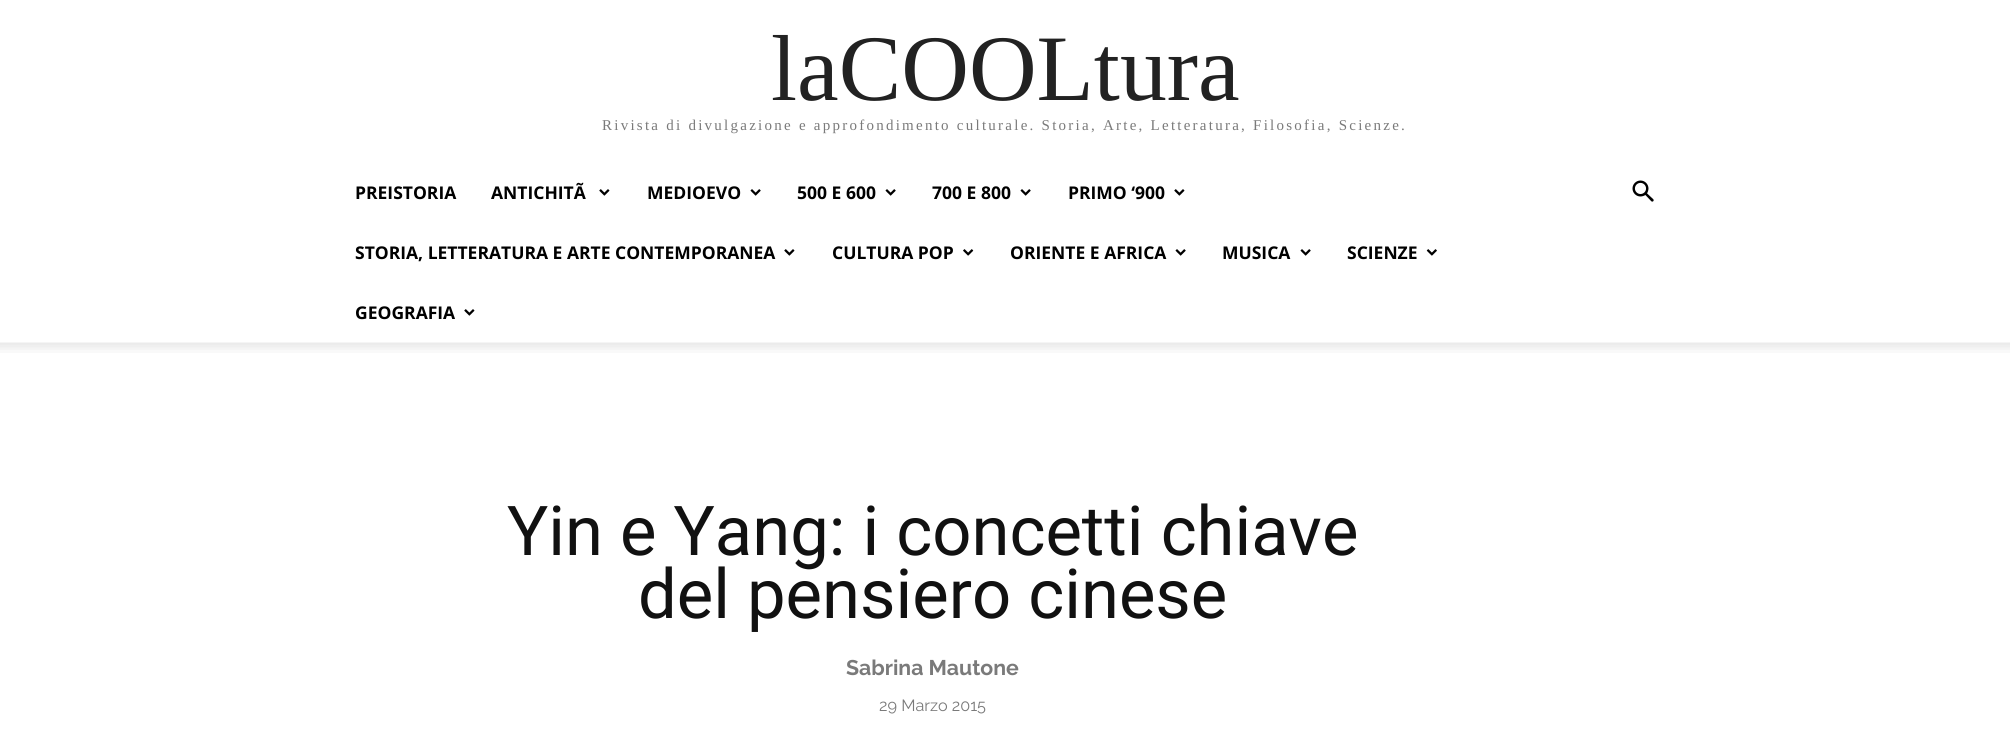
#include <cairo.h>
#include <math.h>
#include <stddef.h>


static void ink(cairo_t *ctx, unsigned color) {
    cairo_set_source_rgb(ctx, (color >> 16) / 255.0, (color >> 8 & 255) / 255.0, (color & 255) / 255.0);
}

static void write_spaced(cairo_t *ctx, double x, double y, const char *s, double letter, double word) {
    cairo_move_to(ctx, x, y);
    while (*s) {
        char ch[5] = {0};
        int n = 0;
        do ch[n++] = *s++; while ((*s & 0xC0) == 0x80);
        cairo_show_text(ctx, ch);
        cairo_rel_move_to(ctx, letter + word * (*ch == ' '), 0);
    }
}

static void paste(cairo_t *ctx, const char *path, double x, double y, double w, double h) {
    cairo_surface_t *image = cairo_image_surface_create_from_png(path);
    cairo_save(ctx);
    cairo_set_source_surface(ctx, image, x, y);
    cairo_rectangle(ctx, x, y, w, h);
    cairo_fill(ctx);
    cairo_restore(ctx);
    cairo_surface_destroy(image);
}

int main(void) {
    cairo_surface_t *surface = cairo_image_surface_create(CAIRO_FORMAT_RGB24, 2010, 737);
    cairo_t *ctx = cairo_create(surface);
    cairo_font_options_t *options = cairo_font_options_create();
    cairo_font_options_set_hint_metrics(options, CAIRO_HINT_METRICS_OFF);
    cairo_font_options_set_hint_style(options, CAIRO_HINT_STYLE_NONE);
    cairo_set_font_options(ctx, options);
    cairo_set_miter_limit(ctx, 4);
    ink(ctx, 0xFFFFFF);
    cairo_paint(ctx);
    cairo_select_font_face(ctx, "Liberation Serif", CAIRO_FONT_SLANT_NORMAL, CAIRO_FONT_WEIGHT_NORMAL);
    cairo_set_font_size(ctx, 93.75);
    ink(ctx, 0x222222);
    cairo_move_to(ctx, 771, 100);
    cairo_show_text(ctx, "laCOOLtura");
    cairo_set_font_size(ctx, 15);
    ink(ctx, 0x7A7A7A);
    write_spaced(ctx, 602, 130, "Rivista di divulgazione e approfondimento culturale. Storia, Arte, Letteratura, Filosofia, Scienze.", 2.25, 0);
    cairo_select_font_face(ctx, "Open Sans", CAIRO_FONT_SLANT_NORMAL, CAIRO_FONT_WEIGHT_BOLD);
    cairo_set_font_size(ctx, 17.5);
    ink(ctx, 0x000000);
    cairo_move_to(ctx, 355, 199);
    cairo_show_text(ctx, "PREISTORIA");
    cairo_move_to(ctx, 491, 199);
    cairo_show_text(ctx, "ANTICHITÃ");
    paste(ctx, "media/1.png", 599, 189, 11, 7);
    cairo_move_to(ctx, 647, 199);
    cairo_show_text(ctx, "MEDIOEVO");
    paste(ctx, "media/2.png", 750, 189, 11, 7);
    cairo_move_to(ctx, 797, 199);
    cairo_show_text(ctx, "500 E 600");
    paste(ctx, "media/2.png", 885, 189, 11, 7);
    cairo_move_to(ctx, 932, 199);
    cairo_show_text(ctx, "700 E 800");
    paste(ctx, "media/2.png", 1020, 189, 11, 7);
    cairo_move_to(ctx, 1068, 199);
    cairo_show_text(ctx, "PRIMO ‘900");
    paste(ctx, "media/1.png", 1174, 189, 11, 7);
    cairo_move_to(ctx, 355, 259);
    cairo_show_text(ctx, "STORIA, LETTERATURA E ARTE CONTEMPORANEA");
    paste(ctx, "media/1.png", 784, 249, 11, 7);
    cairo_move_to(ctx, 832, 259);
    cairo_show_text(ctx, "CULTURA POP");
    paste(ctx, "media/3.png", 963, 249, 11, 7);
    cairo_move_to(ctx, 1010, 259);
    cairo_show_text(ctx, "ORIENTE E AFRICA");
    paste(ctx, "media/2.png", 1175, 249, 11, 7);
    cairo_move_to(ctx, 1222, 259);
    cairo_show_text(ctx, "MUSICA");
    paste(ctx, "media/2.png", 1300, 249, 11, 7);
    cairo_move_to(ctx, 1347, 259);
    cairo_show_text(ctx, "SCIENZE");
    paste(ctx, "media/4.png", 1426, 249, 11, 7);
    cairo_move_to(ctx, 355, 319);
    cairo_show_text(ctx, "GEOGRAFIA");
    paste(ctx, "media/1.png", 464, 309, 11, 7);
    paste(ctx, "media/5.png", 1632, 180, 22, 22);
    paste(ctx, "media/6.png", 0, 342, 2010, 11);
    cairo_select_font_face(ctx, "Roboto", CAIRO_FONT_SLANT_NORMAL, CAIRO_FONT_WEIGHT_NORMAL);
    cairo_set_font_size(ctx, 68.75);
    ink(ctx, 0x111111);
    cairo_move_to(ctx, 507, 555);
    cairo_show_text(ctx, "Yin e Yang: i concetti chiave");
    cairo_move_to(ctx, 638, 618);
    cairo_show_text(ctx, "del pensiero cinese");
    cairo_select_font_face(ctx, "Raleway", CAIRO_FONT_SLANT_NORMAL, CAIRO_FONT_WEIGHT_BOLD);
    cairo_set_font_size(ctx, 21.25);
    ink(ctx, 0x7A7A7A);
    cairo_move_to(ctx, 846, 675);
    cairo_show_text(ctx, "Sabrina Mautone");
    cairo_select_font_face(ctx, "Raleway", CAIRO_FONT_SLANT_NORMAL, CAIRO_FONT_WEIGHT_NORMAL);
    cairo_set_font_size(ctx, 16.25);
    cairo_move_to(ctx, 879, 711);
    cairo_show_text(ctx, "29 Marzo 2015");
    cairo_surface_write_to_png(surface, "image.png");
    cairo_font_options_destroy(options);
    cairo_destroy(ctx);
    cairo_surface_destroy(surface);
    return 0;
}
